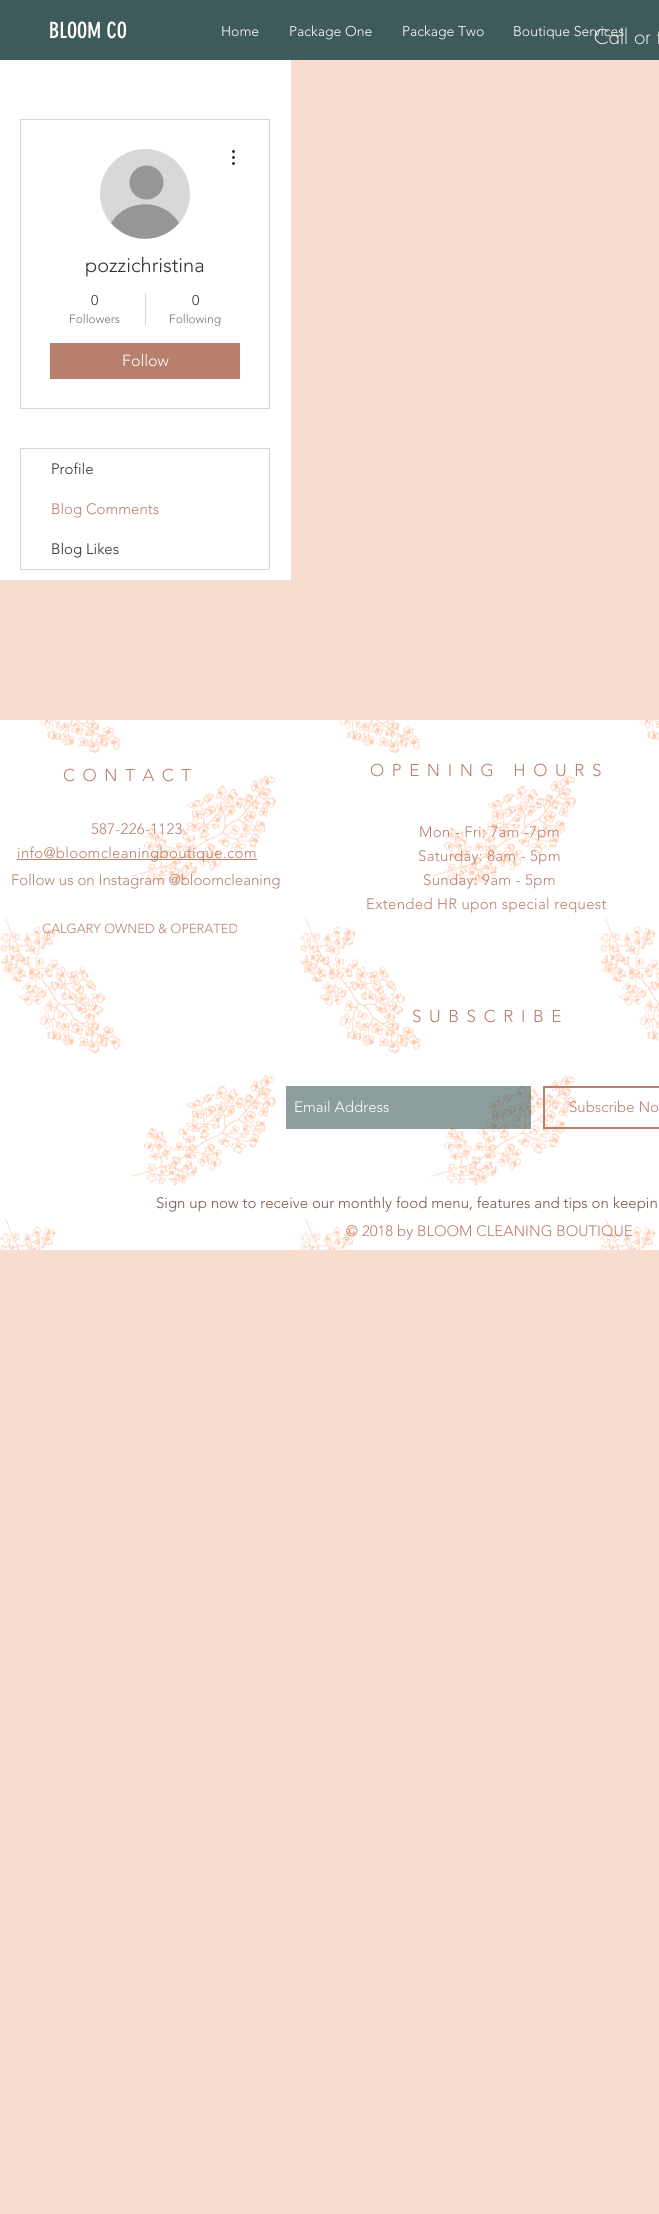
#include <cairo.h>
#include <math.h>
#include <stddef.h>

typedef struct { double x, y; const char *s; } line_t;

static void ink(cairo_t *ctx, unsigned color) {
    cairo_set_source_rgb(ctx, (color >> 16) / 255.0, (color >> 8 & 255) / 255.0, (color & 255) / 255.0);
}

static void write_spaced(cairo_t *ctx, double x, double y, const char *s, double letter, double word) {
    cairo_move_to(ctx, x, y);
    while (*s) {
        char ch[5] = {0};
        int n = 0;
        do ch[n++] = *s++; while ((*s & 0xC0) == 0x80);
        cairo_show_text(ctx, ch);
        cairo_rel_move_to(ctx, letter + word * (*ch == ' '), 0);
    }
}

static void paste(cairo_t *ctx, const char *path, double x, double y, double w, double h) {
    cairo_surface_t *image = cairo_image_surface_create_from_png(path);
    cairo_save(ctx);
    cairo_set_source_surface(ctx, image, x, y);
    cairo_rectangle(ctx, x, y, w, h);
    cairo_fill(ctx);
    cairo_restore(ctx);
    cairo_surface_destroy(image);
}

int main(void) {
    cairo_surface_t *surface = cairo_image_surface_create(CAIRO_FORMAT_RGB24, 659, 2214);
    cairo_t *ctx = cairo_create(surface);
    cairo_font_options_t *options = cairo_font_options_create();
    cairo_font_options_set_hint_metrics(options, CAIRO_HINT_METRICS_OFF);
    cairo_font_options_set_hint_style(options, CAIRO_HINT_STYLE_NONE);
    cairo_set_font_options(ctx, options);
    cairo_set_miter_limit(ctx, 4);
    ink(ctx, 0xF7DDD0);
    cairo_paint(ctx);
    ink(ctx, 0x3E5A5B);
    cairo_rectangle(ctx, 0, 0, 659, 60);
    cairo_fill(ctx);
    cairo_select_font_face(ctx, "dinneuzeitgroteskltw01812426", CAIRO_FONT_SLANT_NORMAL, CAIRO_FONT_WEIGHT_NORMAL);
    cairo_set_font_size(ctx, 22);
    ink(ctx, 0xFFFFFF);
    cairo_move_to(ctx, 49, 38);
    cairo_show_text(ctx, "BLOOM CO");
    cairo_select_font_face(ctx, "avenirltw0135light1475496 Light", CAIRO_FONT_SLANT_NORMAL, CAIRO_FONT_WEIGHT_NORMAL);
    cairo_set_font_size(ctx, 14);
    {
        static const line_t items[] = {
            {221, 36, "Home"},
            {289, 36, "Package One"},
            {402, 36, "Package Two"},
        };
        for (size_t i = 0; i < sizeof items / sizeof *items; i++) {
            cairo_move_to(ctx, items[i].x, items[i].y);
            cairo_show_text(ctx, items[i].s);
        }
    }
    cairo_select_font_face(ctx, "futura Light", CAIRO_FONT_SLANT_NORMAL, CAIRO_FONT_WEIGHT_NORMAL);
    cairo_set_font_size(ctx, 20);
    cairo_move_to(ctx, 594, 44);
    cairo_show_text(ctx, "Call or t");
    cairo_select_font_face(ctx, "avenirltw0135light1475496 Light", CAIRO_FONT_SLANT_NORMAL, CAIRO_FONT_WEIGHT_NORMAL);
    cairo_set_font_size(ctx, 14);
    cairo_move_to(ctx, 513, 36);
    cairo_show_text(ctx, "Boutique Services");
    cairo_rectangle(ctx, 0, 60, 291, 520);
    cairo_fill(ctx);
    cairo_rectangle(ctx, 20.5, 119.5, 249, 289);
    ink(ctx, 0xD5D5D6);
    cairo_set_line_width(ctx, 1);
    cairo_stroke(ctx);
    ink(ctx, 0xD8D8D8);
    cairo_arc(ctx, 145, 194, 45, 0, 2 * M_PI);
    cairo_fill(ctx);
    ink(ctx, 0x969696);
    cairo_arc(ctx, 146.5, 182.5, 17, 0, 2 * M_PI);
    cairo_fill(ctx);
    cairo_new_path(ctx);
    cairo_move_to(ctx, 179, 223);
    cairo_curve_to(ctx, 161, 244, 129, 244, 111, 223);
    cairo_curve_to(ctx, 126, 198, 164, 198, 179, 223);
    cairo_close_path(ctx);
    cairo_fill(ctx);
    paste(ctx, "media/1.png", 232, 150, 3, 15);
    cairo_set_font_size(ctx, 20);
    ink(ctx, 0x2F2F30);
    cairo_move_to(ctx, 85, 272);
    cairo_show_text(ctx, "pozzichristina");
    cairo_set_font_size(ctx, 14);
    cairo_move_to(ctx, 91, 305);
    cairo_show_text(ctx, "0");
    cairo_set_font_size(ctx, 12);
    ink(ctx, 0x6D6D6E);
    cairo_move_to(ctx, 69, 323);
    cairo_show_text(ctx, "Followers");
    ink(ctx, 0xD5D5D6);
    cairo_rectangle(ctx, 145, 293, 1, 32);
    cairo_fill(ctx);
    cairo_set_font_size(ctx, 14);
    ink(ctx, 0x2F2F30);
    cairo_move_to(ctx, 192, 305);
    cairo_show_text(ctx, "0");
    cairo_set_font_size(ctx, 12);
    ink(ctx, 0x6D6D6E);
    cairo_move_to(ctx, 169, 323);
    cairo_show_text(ctx, "Following");
    ink(ctx, 0xB97F6D);
    cairo_rectangle(ctx, 50, 343, 190, 36);
    cairo_fill(ctx);
    cairo_set_font_size(ctx, 16);
    ink(ctx, 0xFFFFFF);
    cairo_move_to(ctx, 122, 366);
    cairo_show_text(ctx, "Follow");
    cairo_rectangle(ctx, 20.5, 448.5, 249, 121);
    ink(ctx, 0xD5D5D6);
    cairo_stroke(ctx);
    cairo_set_font_size(ctx, 15);
    ink(ctx, 0x2F2F30);
    cairo_move_to(ctx, 51, 474);
    cairo_show_text(ctx, "Profile");
    ink(ctx, 0xB97F6D);
    cairo_move_to(ctx, 51, 514);
    cairo_show_text(ctx, "Blog Comments");
    ink(ctx, 0x2F2F30);
    cairo_move_to(ctx, 51, 554);
    cairo_show_text(ctx, "Blog Likes");
    ink(ctx, 0xFFFFFF);
    cairo_rectangle(ctx, 0, 720, 659, 530);
    cairo_fill(ctx);
    paste(ctx, "media/2.png", 0, 720, 659, 530);
    cairo_set_font_size(ctx, 17);
    ink(ctx, 0xB97F6D);
    write_spaced(ctx, 63, 781, "CONTACT", 7.6, 0);
    write_spaced(ctx, 370, 776, "OPENING HOURS", 7.6, 0);
    cairo_set_font_size(ctx, 15);
    write_spaced(ctx, 91, 834, "587-226-1123", 0.3, 0);
    cairo_rectangle(ctx, 17, 859, 240, 1);
    cairo_fill(ctx);
    {
        static const line_t items[] = {
            {17, 858, "info@bloomcleaningboutique.com"},
            {419, 837, "Mon - Fri: 7am -7pm"},
            {418, 861, "Saturday: 8am - 5pm"},
            {423, 885, "Sunday: 9am - 5pm"},
            {366, 909, "Extended HR upon special request"},
        };
        for (size_t i = 0; i < sizeof items / sizeof *items; i++) {
            write_spaced(ctx, items[i].x, items[i].y, items[i].s, 0.3, 0);
        }
    }
    cairo_move_to(ctx, 11, 885);
    cairo_show_text(ctx, "Follow us on Instagram @bloomcleaning");
    cairo_set_font_size(ctx, 13);
    cairo_move_to(ctx, 42, 933);
    cairo_show_text(ctx, "CALGARY OWNED & OPERATED");
    cairo_set_font_size(ctx, 17);
    write_spaced(ctx, 412, 1022, "SUBSCRIBE", 7.6, 0);
    cairo_set_source_rgba(ctx, 0.243, 0.353, 0.357, 0.59);
    cairo_rectangle(ctx, 286, 1086, 245, 43);
    cairo_fill(ctx);
    cairo_set_font_size(ctx, 15);
    ink(ctx, 0xFFFFFF);
    cairo_move_to(ctx, 294, 1112);
    cairo_show_text(ctx, "Email Address");
    cairo_rectangle(ctx, 544, 1087, 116, 41);
    ink(ctx, 0xB97F6D);
    cairo_set_line_width(ctx, 2);
    cairo_stroke(ctx);
    cairo_move_to(ctx, 569, 1112);
    cairo_show_text(ctx, "Subscribe No");
    ink(ctx, 0x7B5549);
    cairo_move_to(ctx, 156, 1208);
    cairo_show_text(ctx, "Sign up now to receive our monthly food menu, features and tips on keepin");
    ink(ctx, 0xB97F6D);
    cairo_move_to(ctx, 346, 1236);
    cairo_show_text(ctx, "© 2018 by BLOOM CLEANING BOUTIQUE");
    cairo_surface_write_to_png(surface, "image.png");
    cairo_font_options_destroy(options);
    cairo_destroy(ctx);
    cairo_surface_destroy(surface);
    return 0;
}
